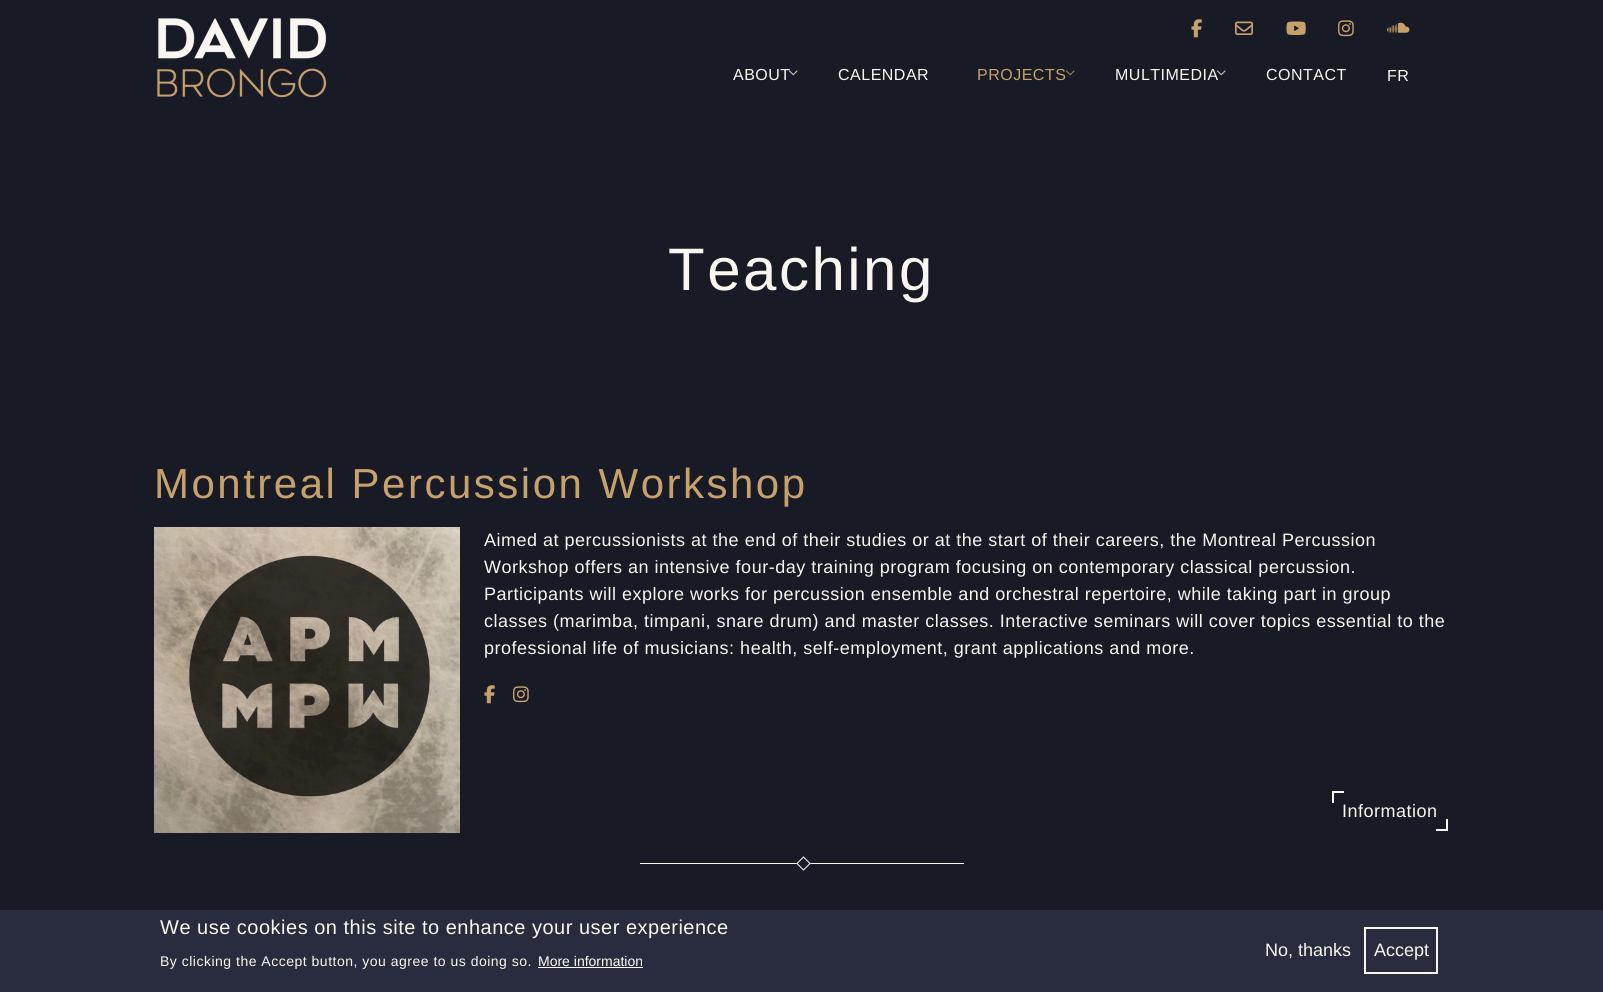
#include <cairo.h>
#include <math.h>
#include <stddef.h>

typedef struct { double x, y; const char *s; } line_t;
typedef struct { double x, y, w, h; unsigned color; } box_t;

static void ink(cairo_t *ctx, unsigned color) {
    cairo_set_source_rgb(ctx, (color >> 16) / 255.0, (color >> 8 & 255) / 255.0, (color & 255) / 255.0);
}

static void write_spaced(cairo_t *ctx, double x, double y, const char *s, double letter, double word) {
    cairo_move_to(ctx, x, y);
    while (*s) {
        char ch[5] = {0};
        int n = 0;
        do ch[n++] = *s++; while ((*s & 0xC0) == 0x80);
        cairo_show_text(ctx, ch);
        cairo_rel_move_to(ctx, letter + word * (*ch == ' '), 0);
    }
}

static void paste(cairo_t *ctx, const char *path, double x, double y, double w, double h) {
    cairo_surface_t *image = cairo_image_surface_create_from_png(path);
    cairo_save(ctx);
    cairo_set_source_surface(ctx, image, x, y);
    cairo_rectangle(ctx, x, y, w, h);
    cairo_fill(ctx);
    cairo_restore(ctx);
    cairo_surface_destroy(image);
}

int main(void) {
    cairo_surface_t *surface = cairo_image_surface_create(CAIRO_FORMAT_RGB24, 1603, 992);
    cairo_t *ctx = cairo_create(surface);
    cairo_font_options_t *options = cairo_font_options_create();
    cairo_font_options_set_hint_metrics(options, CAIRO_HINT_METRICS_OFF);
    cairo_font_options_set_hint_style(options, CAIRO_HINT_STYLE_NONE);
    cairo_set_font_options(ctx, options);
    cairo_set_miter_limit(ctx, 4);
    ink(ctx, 0x181A25);
    cairo_paint(ctx);
    paste(ctx, "media/1.png", 157, 18, 170, 80);
    paste(ctx, "media/2.png", 1191, 19, 11, 19);
    paste(ctx, "media/3.png", 1235, 21, 18, 14);
    paste(ctx, "media/4.png", 1286, 21, 20, 14);
    paste(ctx, "media/5.png", 1338, 20, 16, 17);
    paste(ctx, "media/6.png", 1387, 22, 23, 11);
    cairo_select_font_face(ctx, "Liberation Sans", CAIRO_FONT_SLANT_NORMAL, CAIRO_FONT_WEIGHT_NORMAL);
    cairo_set_font_size(ctx, 16);
    ink(ctx, 0xF9F6F0);
    write_spaced(ctx, 733, 80, "ABOUT", 0.5, 0);
    paste(ctx, "media/7.png", 789, 70, 9, 6);
    write_spaced(ctx, 838, 80, "CALENDAR", 0.5, 0);
    ink(ctx, 0xC7A16B);
    write_spaced(ctx, 977, 80, "PROJECTS", 0.5, 0);
    paste(ctx, "media/8.png", 1066, 70, 9, 6);
    ink(ctx, 0xF9F6F0);
    write_spaced(ctx, 1115, 80, "MULTIMEDIA", 0.5, 0);
    paste(ctx, "media/9.png", 1217, 70, 9, 6);
    write_spaced(ctx, 1266, 80, "CONTACT", 0.5, 0);
    write_spaced(ctx, 1387, 81, "FR", 0.5, 0);
    cairo_set_font_size(ctx, 60);
    write_spaced(ctx, 668, 290, "Teaching", 2.5, 0);
    cairo_set_font_size(ctx, 42);
    ink(ctx, 0xC7A16B);
    write_spaced(ctx, 154, 498, "Montreal Percussion Workshop", 2.5, 0);
    paste(ctx, "media/10.png", 154, 527, 306, 306);
    cairo_set_font_size(ctx, 18);
    ink(ctx, 0xF9F6F0);
    {
        static const line_t items[] = {
            {484, 546, "Aimed at percussionists at the end of their studies or at the start of their careers, the Montreal Percussion"},
            {484, 573, "Workshop offers an intensive four-day training program focusing on contemporary classical percussion."},
            {484, 600, "Participants will explore works for percussion ensemble and orchestral repertoire, while taking part in group"},
            {484, 627, "classes (marimba, timpani, snare drum) and master classes. Interactive seminars will cover topics essential to the"},
            {484, 654, "professional life of musicians: health, self-employment, grant applications and more."},
        };
        for (size_t i = 0; i < sizeof items / sizeof *items; i++) {
            write_spaced(ctx, items[i].x, items[i].y, items[i].s, 0.5, 0);
        }
    }
    paste(ctx, "media/2.png", 484, 685, 11, 19);
    paste(ctx, "media/5.png", 513, 686, 16, 17);
    cairo_rectangle(ctx, 1332, 791, 12, 2);
    cairo_fill(ctx);
    cairo_rectangle(ctx, 1332, 791, 2, 12);
    cairo_fill(ctx);
    write_spaced(ctx, 1342, 817, "Information", 0.5, 0);
    {
        static const box_t items[] = {
            {1446, 819, 2, 12, 0xF9F6F0},
            {1436, 829, 12, 2, 0xF9F6F0},
            {640, 863, 324, 1, 0xF9F6F0},
        };
        for (size_t i = 0; i < sizeof items / sizeof *items; i++) {
            ink(ctx, items[i].color);
            cairo_rectangle(ctx, items[i].x, items[i].y, items[i].w, items[i].h);
            cairo_fill(ctx);
        }
    }
    ink(ctx, 0x181A25);
    cairo_new_path(ctx);
    cairo_move_to(ctx, 803.5, 856.5);
    cairo_line_to(ctx, 810.5, 863.5);
    cairo_line_to(ctx, 803.5, 870.5);
    cairo_line_to(ctx, 796.5, 863.5);
    cairo_close_path(ctx);
    cairo_fill(ctx);
    cairo_new_path(ctx);
    cairo_move_to(ctx, 803.5, 857);
    cairo_line_to(ctx, 810, 863.5);
    cairo_line_to(ctx, 803.5, 870);
    cairo_line_to(ctx, 797, 863.5);
    cairo_close_path(ctx);
    ink(ctx, 0xF9F6F0);
    cairo_set_line_width(ctx, 1);
    cairo_stroke(ctx);
    ink(ctx, 0x282C3E);
    cairo_rectangle(ctx, 0, 910, 1603, 82);
    cairo_fill(ctx);
    cairo_set_font_size(ctx, 20);
    ink(ctx, 0xF9F6F0);
    write_spaced(ctx, 160, 934, "We use cookies on this site to enhance your user experience", 0.5, 0);
    cairo_set_font_size(ctx, 14);
    write_spaced(ctx, 160, 966, "By clicking the Accept button, you agree to us doing so.", 0.5, 0);
    ink(ctx, 0xFFFFFF);
    cairo_move_to(ctx, 538, 966);
    cairo_show_text(ctx, "More information");
    cairo_rectangle(ctx, 538, 967, 105, 1);
    cairo_fill(ctx);
    cairo_set_font_size(ctx, 18);
    ink(ctx, 0xF9F6F0);
    cairo_move_to(ctx, 1265, 956);
    cairo_show_text(ctx, "No, thanks");
    {
        static const box_t items[] = {
            {1364, 927, 74, 2, 0xF9F6F0},
            {1364, 927, 2, 47, 0xF9F6F0},
            {1436, 927, 2, 47, 0xF9F6F0},
            {1364, 972, 74, 2, 0xF9F6F0},
        };
        for (size_t i = 0; i < sizeof items / sizeof *items; i++) {
            ink(ctx, items[i].color);
            cairo_rectangle(ctx, items[i].x, items[i].y, items[i].w, items[i].h);
            cairo_fill(ctx);
        }
    }
    cairo_move_to(ctx, 1374, 956);
    cairo_show_text(ctx, "Accept");
    cairo_surface_write_to_png(surface, "image.png");
    cairo_font_options_destroy(options);
    cairo_destroy(ctx);
    cairo_surface_destroy(surface);
    return 0;
}
